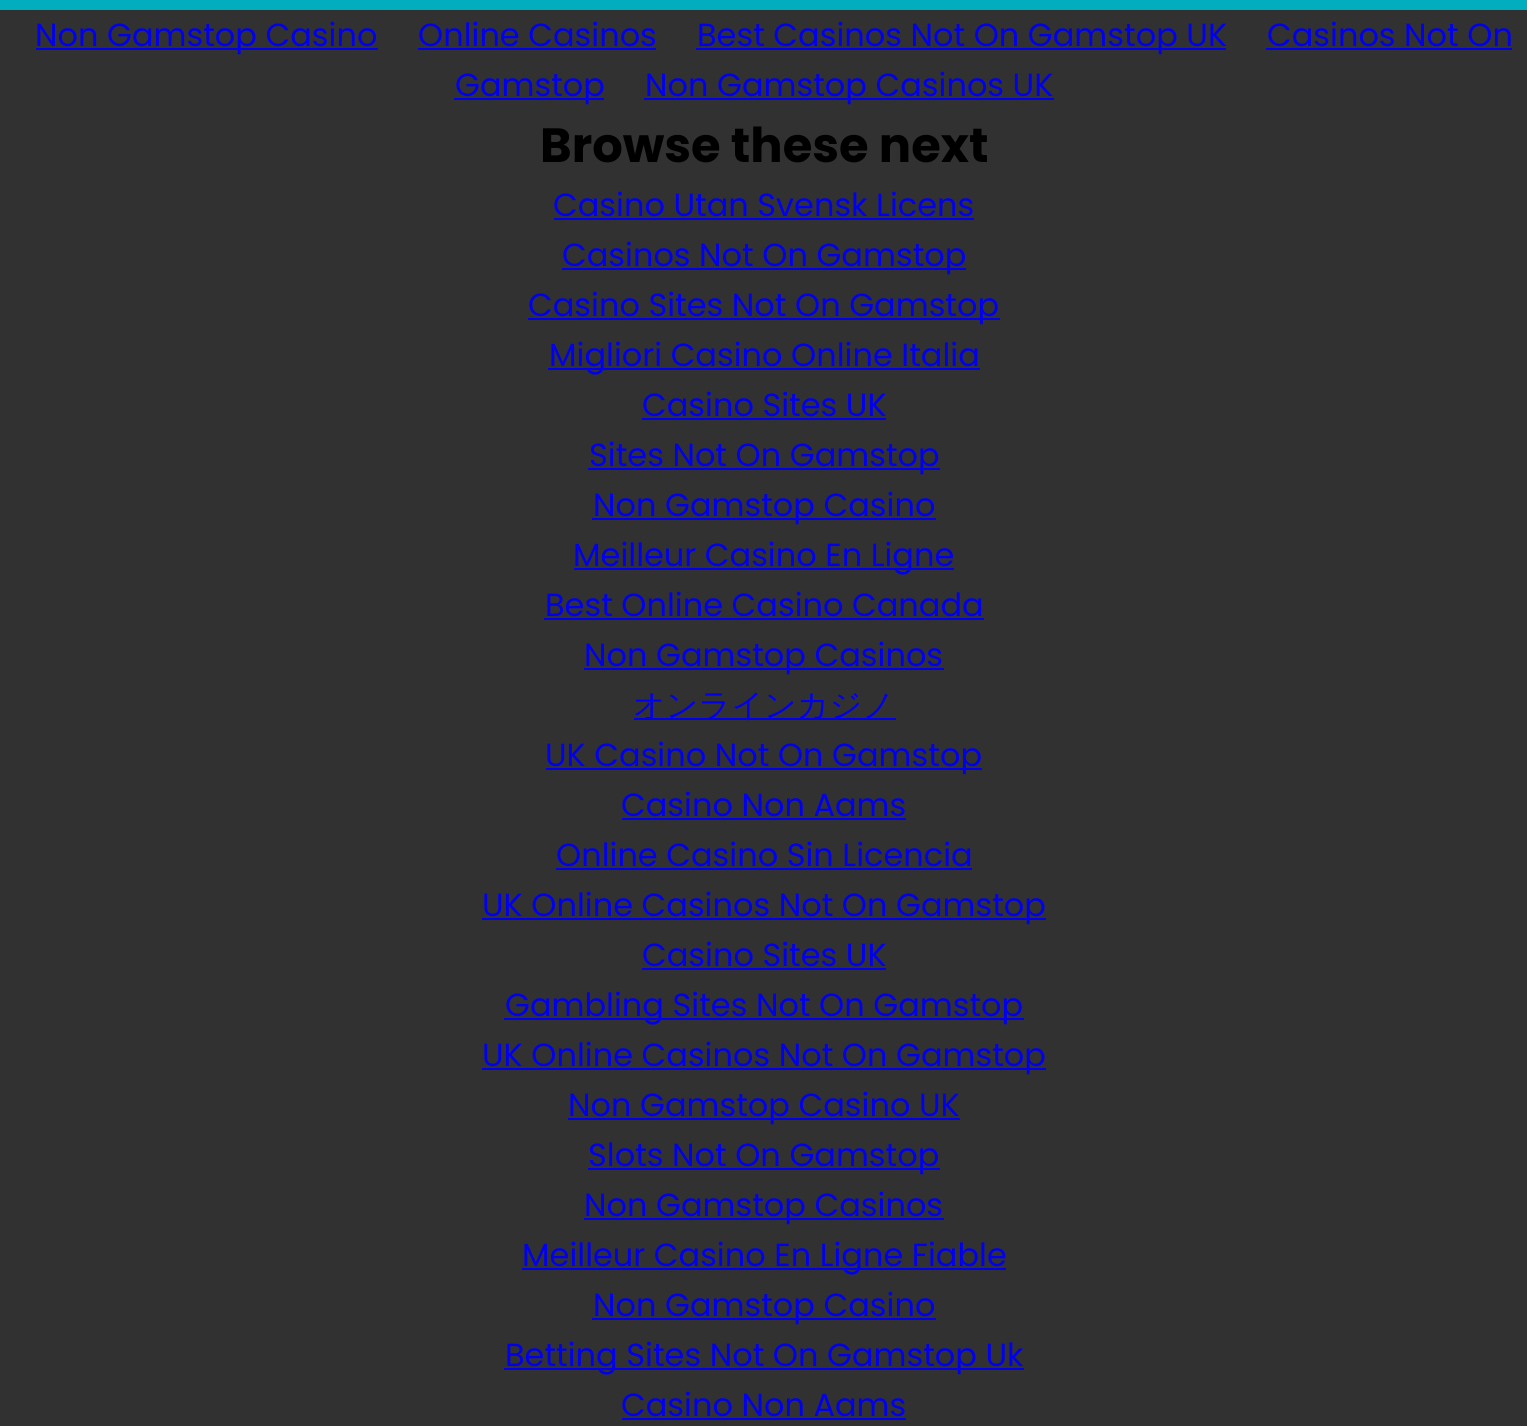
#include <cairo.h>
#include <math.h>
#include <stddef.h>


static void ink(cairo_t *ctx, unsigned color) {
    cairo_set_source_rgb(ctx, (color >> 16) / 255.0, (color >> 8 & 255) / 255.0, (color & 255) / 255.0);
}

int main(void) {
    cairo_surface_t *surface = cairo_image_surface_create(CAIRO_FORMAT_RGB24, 1527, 1426);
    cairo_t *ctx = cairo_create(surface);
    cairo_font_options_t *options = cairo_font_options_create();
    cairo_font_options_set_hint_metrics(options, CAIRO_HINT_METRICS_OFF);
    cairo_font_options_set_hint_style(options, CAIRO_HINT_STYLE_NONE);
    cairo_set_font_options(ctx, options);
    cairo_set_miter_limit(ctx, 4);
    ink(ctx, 0x313131);
    cairo_paint(ctx);
    ink(ctx, 0x00AEBE);
    cairo_rectangle(ctx, 0, 0, 1527, 10);
    cairo_fill(ctx);
    ink(ctx, 0x0000EE);
    cairo_rectangle(ctx, 36, 48, 342, 2);
    cairo_fill(ctx);
    cairo_select_font_face(ctx, "Poppins", CAIRO_FONT_SLANT_NORMAL, CAIRO_FONT_WEIGHT_NORMAL);
    cairo_set_font_size(ctx, 32);
    cairo_move_to(ctx, 35, 46);
    cairo_show_text(ctx, "Non Gamstop Casino");
    cairo_move_to(ctx, 418, 46);
    cairo_show_text(ctx, "Online Casinos");
    cairo_rectangle(ctx, 418, 48, 238, 2);
    cairo_fill(ctx);
    cairo_rectangle(ctx, 696, 48, 530, 2);
    cairo_fill(ctx);
    cairo_move_to(ctx, 697, 46);
    cairo_show_text(ctx, "Best Casinos Not On Gamstop UK");
    cairo_move_to(ctx, 1267, 46);
    cairo_show_text(ctx, "Casinos Not On");
    cairo_rectangle(ctx, 1266, 48, 246, 2);
    cairo_fill(ctx);
    cairo_rectangle(ctx, 454, 98, 150, 2);
    cairo_fill(ctx);
    cairo_move_to(ctx, 455, 96);
    cairo_show_text(ctx, "Gamstop");
    cairo_rectangle(ctx, 644, 98, 410, 2);
    cairo_fill(ctx);
    cairo_move_to(ctx, 645, 96);
    cairo_show_text(ctx, "Non Gamstop Casinos UK");
    cairo_select_font_face(ctx, "Poppins", CAIRO_FONT_SLANT_NORMAL, CAIRO_FONT_WEIGHT_BOLD);
    cairo_set_font_size(ctx, 48);
    ink(ctx, 0x000000);
    cairo_move_to(ctx, 540, 162);
    cairo_show_text(ctx, "Browse these next");
    cairo_select_font_face(ctx, "Poppins", CAIRO_FONT_SLANT_NORMAL, CAIRO_FONT_WEIGHT_NORMAL);
    cairo_set_font_size(ctx, 32);
    ink(ctx, 0x0000EE);
    cairo_move_to(ctx, 553, 216);
    cairo_show_text(ctx, "Casino Utan Svensk Licens");
    cairo_rectangle(ctx, 554, 218, 420, 2);
    cairo_fill(ctx);
    cairo_rectangle(ctx, 562, 268, 404, 2);
    cairo_fill(ctx);
    cairo_move_to(ctx, 562, 266);
    cairo_show_text(ctx, "Casinos Not On Gamstop");
    cairo_rectangle(ctx, 528, 318, 472, 2);
    cairo_fill(ctx);
    cairo_move_to(ctx, 528, 316);
    cairo_show_text(ctx, "Casino Sites Not On Gamstop");
    cairo_rectangle(ctx, 548, 368, 432, 2);
    cairo_fill(ctx);
    cairo_move_to(ctx, 549, 366);
    cairo_show_text(ctx, "Migliori Casino Online Italia");
    cairo_move_to(ctx, 642, 416);
    cairo_show_text(ctx, "Casino Sites UK");
    cairo_rectangle(ctx, 642, 418, 244, 2);
    cairo_fill(ctx);
    cairo_rectangle(ctx, 588, 468, 352, 2);
    cairo_fill(ctx);
    cairo_move_to(ctx, 589, 466);
    cairo_show_text(ctx, "Sites Not On Gamstop");
    cairo_rectangle(ctx, 592, 518, 344, 2);
    cairo_fill(ctx);
    cairo_move_to(ctx, 593, 516);
    cairo_show_text(ctx, "Non Gamstop Casino");
    cairo_rectangle(ctx, 574, 568, 380, 2);
    cairo_fill(ctx);
    cairo_move_to(ctx, 573, 566);
    cairo_show_text(ctx, "Meilleur Casino En Ligne");
    cairo_move_to(ctx, 545, 616);
    cairo_show_text(ctx, "Best Online Casino Canada");
    cairo_rectangle(ctx, 544, 618, 440, 2);
    cairo_fill(ctx);
    cairo_rectangle(ctx, 584, 668, 360, 2);
    cairo_fill(ctx);
    cairo_move_to(ctx, 584, 666);
    cairo_show_text(ctx, "Non Gamstop Casinos");
    cairo_rectangle(ctx, 634, 718, 262, 2);
    cairo_fill(ctx);
    cairo_select_font_face(ctx, "WenQuanYi Zen Hei Medium", CAIRO_FONT_SLANT_NORMAL, CAIRO_FONT_WEIGHT_NORMAL);
    cairo_move_to(ctx, 633, 716);
    cairo_show_text(ctx, "オンラインカジノ");
    cairo_rectangle(ctx, 546, 768, 436, 2);
    cairo_fill(ctx);
    cairo_select_font_face(ctx, "Poppins", CAIRO_FONT_SLANT_NORMAL, CAIRO_FONT_WEIGHT_NORMAL);
    cairo_move_to(ctx, 545, 766);
    cairo_show_text(ctx, "UK Casino Not On Gamstop");
    cairo_move_to(ctx, 621, 816);
    cairo_show_text(ctx, "Casino Non Aams");
    cairo_rectangle(ctx, 622, 818, 284, 2);
    cairo_fill(ctx);
    cairo_move_to(ctx, 556, 866);
    cairo_show_text(ctx, "Online Casino Sin Licencia");
    cairo_rectangle(ctx, 556, 868, 416, 2);
    cairo_fill(ctx);
    cairo_rectangle(ctx, 482, 918, 564, 2);
    cairo_fill(ctx);
    cairo_move_to(ctx, 482, 916);
    cairo_show_text(ctx, "UK Online Casinos Not On Gamstop");
    cairo_move_to(ctx, 642, 966);
    cairo_show_text(ctx, "Casino Sites UK");
    cairo_rectangle(ctx, 642, 968, 244, 2);
    cairo_fill(ctx);
    cairo_rectangle(ctx, 504, 1018, 520, 2);
    cairo_fill(ctx);
    cairo_move_to(ctx, 505, 1016);
    cairo_show_text(ctx, "Gambling Sites Not On Gamstop");
    cairo_rectangle(ctx, 482, 1068, 564, 2);
    cairo_fill(ctx);
    cairo_move_to(ctx, 482, 1066);
    cairo_show_text(ctx, "UK Online Casinos Not On Gamstop");
    cairo_rectangle(ctx, 568, 1118, 392, 2);
    cairo_fill(ctx);
    cairo_move_to(ctx, 568, 1116);
    cairo_show_text(ctx, "Non Gamstop Casino UK");
    cairo_rectangle(ctx, 588, 1168, 352, 2);
    cairo_fill(ctx);
    cairo_move_to(ctx, 588, 1166);
    cairo_show_text(ctx, "Slots Not On Gamstop");
    cairo_rectangle(ctx, 584, 1218, 360, 2);
    cairo_fill(ctx);
    cairo_move_to(ctx, 584, 1216);
    cairo_show_text(ctx, "Non Gamstop Casinos");
    cairo_rectangle(ctx, 522, 1268, 484, 2);
    cairo_fill(ctx);
    cairo_move_to(ctx, 522, 1266);
    cairo_show_text(ctx, "Meilleur Casino En Ligne Fiable");
    cairo_rectangle(ctx, 592, 1318, 344, 2);
    cairo_fill(ctx);
    cairo_move_to(ctx, 593, 1316);
    cairo_show_text(ctx, "Non Gamstop Casino");
    cairo_rectangle(ctx, 504, 1368, 520, 2);
    cairo_fill(ctx);
    cairo_move_to(ctx, 505, 1366);
    cairo_show_text(ctx, "Betting Sites Not On Gamstop Uk");
    cairo_move_to(ctx, 621, 1416);
    cairo_show_text(ctx, "Casino Non Aams");
    cairo_rectangle(ctx, 622, 1418, 284, 2);
    cairo_fill(ctx);
    cairo_surface_write_to_png(surface, "image.png");
    cairo_font_options_destroy(options);
    cairo_destroy(ctx);
    cairo_surface_destroy(surface);
    return 0;
}
